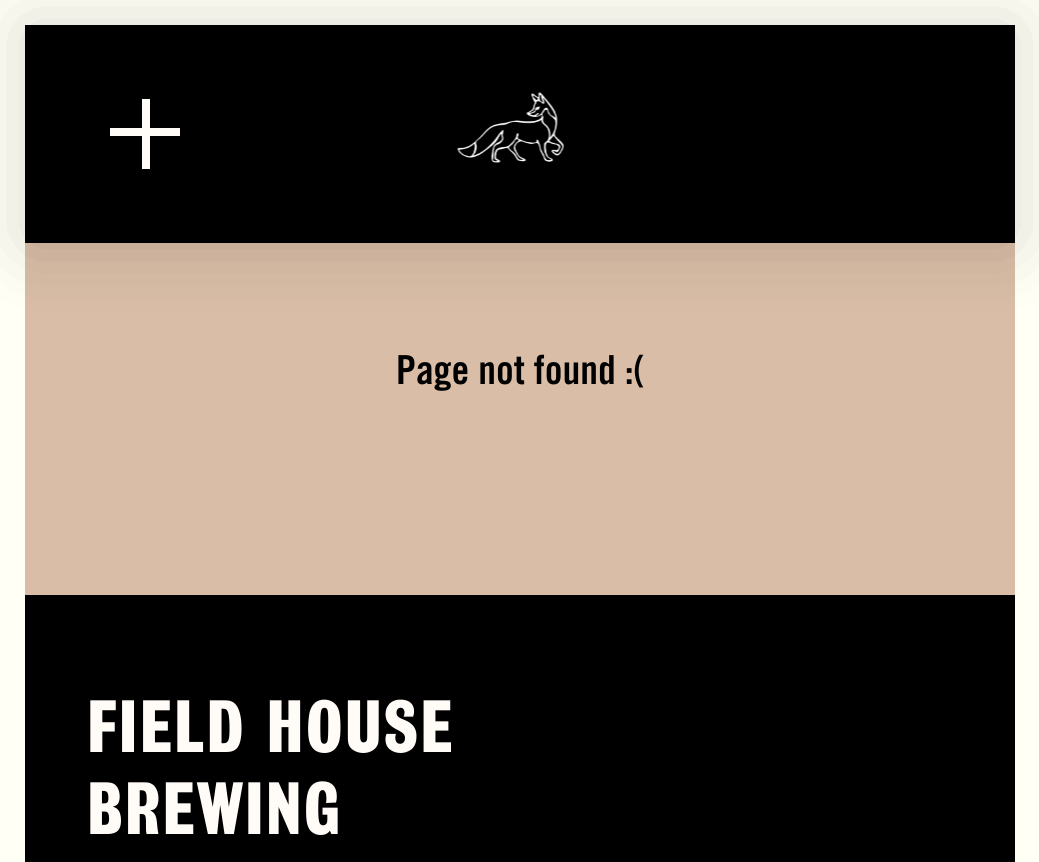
#include <cairo.h>
#include <math.h>
#include <stddef.h>


static void ink(cairo_t *ctx, unsigned color) {
    cairo_set_source_rgb(ctx, (color >> 16) / 255.0, (color >> 8 & 255) / 255.0, (color & 255) / 255.0);
}

static void write_spaced(cairo_t *ctx, double x, double y, const char *s, double letter, double word) {
    cairo_move_to(ctx, x, y);
    while (*s) {
        char ch[5] = {0};
        int n = 0;
        do ch[n++] = *s++; while ((*s & 0xC0) == 0x80);
        cairo_show_text(ctx, ch);
        cairo_rel_move_to(ctx, letter + word * (*ch == ' '), 0);
    }
}

static void round_path(cairo_t *ctx, double x, double y, double w, double h, double r) {
    cairo_new_sub_path(ctx);
    cairo_arc(ctx, x + w - r, y + h - r, r, 0, M_PI / 2);
    cairo_arc(ctx, x + r, y + h - r, r, M_PI / 2, M_PI);
    cairo_arc(ctx, x + r, y + r, r, M_PI, 1.5 * M_PI);
    cairo_arc(ctx, x + w - r, y + r, r, 1.5 * M_PI, 2 * M_PI);
    cairo_close_path(ctx);
}

static void blur_box(cairo_t *ctx, double x, double y, double w, double h, double r, double blur, double alpha) {
    cairo_push_group_with_content(ctx, CAIRO_CONTENT_ALPHA);
    cairo_set_operator(ctx, CAIRO_OPERATOR_SOURCE);
    for (int i = 15; i >= -15 && fmin(w, h) + blur * i / 3 > 0; i -= 2) {
        double e = blur * i / 6;
        cairo_set_source_rgba(ctx, 0, 0, 0, alpha * erfc((i - 1) / 8.5) / 2);
        round_path(ctx, x - e, y - e, w + 2 * e, h + 2 * e, fmax(0, fmin(r + e + blur * .6, fmin(w, h) / 2 + e)));
        cairo_fill(ctx);
    }
    cairo_pattern_t *soft = cairo_pop_group(ctx);
    cairo_mask(ctx, soft);
    cairo_pattern_destroy(soft);
}

static void paste(cairo_t *ctx, const char *path, double x, double y, double w, double h) {
    cairo_surface_t *image = cairo_image_surface_create_from_png(path);
    cairo_save(ctx);
    cairo_set_source_surface(ctx, image, x, y);
    cairo_rectangle(ctx, x, y, w, h);
    cairo_fill(ctx);
    cairo_restore(ctx);
    cairo_surface_destroy(image);
}

int main(void) {
    cairo_surface_t *surface = cairo_image_surface_create(CAIRO_FORMAT_RGB24, 1039, 862);
    cairo_t *ctx = cairo_create(surface);
    cairo_font_options_t *options = cairo_font_options_create();
    cairo_font_options_set_hint_metrics(options, CAIRO_HINT_METRICS_OFF);
    cairo_font_options_set_hint_style(options, CAIRO_HINT_STYLE_NONE);
    cairo_set_font_options(ctx, options);
    cairo_set_miter_limit(ctx, 4);
    ink(ctx, 0xFFFFFF);
    cairo_paint(ctx);
    cairo_rectangle(ctx, 12.5, 12.5, 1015, 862);
    ink(ctx, 0xFFFFF6);
    cairo_set_line_width(ctx, 25);
    cairo_stroke(ctx);
    ink(ctx, 0x000000);
    cairo_rectangle(ctx, 25, 25, 990, 218);
    cairo_fill(ctx);
    ink(ctx, 0xD9BDA6);
    cairo_rectangle(ctx, 25, 243, 990, 352);
    cairo_fill(ctx);
    cairo_save(ctx);
    cairo_set_fill_rule(ctx, CAIRO_FILL_RULE_EVEN_ODD);
    cairo_new_path(ctx);
    cairo_move_to(ctx, 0, 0);
    cairo_line_to(ctx, 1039, 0);
    cairo_line_to(ctx, 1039, 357);
    cairo_line_to(ctx, 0, 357);
    cairo_close_path(ctx);
    cairo_move_to(ctx, 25, 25);
    cairo_line_to(ctx, 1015, 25);
    cairo_line_to(ctx, 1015, 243);
    cairo_line_to(ctx, 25, 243);
    cairo_close_path(ctx);
    cairo_clip(ctx);
    ink(ctx, 0x010101);
    blur_box(ctx, 25, 25, 990, 218, 0, 37.5, 0.15);
    cairo_restore(ctx);
    ink(ctx, 0xFFFBF7);
    cairo_rectangle(ctx, 110, 128, 70, 8);
    cairo_fill(ctx);
    cairo_rectangle(ctx, 142, 99, 8, 70);
    cairo_fill(ctx);
    paste(ctx, "media/1.png", 457, 92, 108, 71);
    cairo_select_font_face(ctx, "Trade Gothic", CAIRO_FONT_SLANT_NORMAL, CAIRO_FONT_WEIGHT_BOLD);
    cairo_set_font_size(ctx, 40);
    ink(ctx, 0x010101);
    cairo_move_to(ctx, 396, 384);
    cairo_show_text(ctx, "Page not found :(");
    ink(ctx, 0x000000);
    cairo_rectangle(ctx, 25, 595, 990, 267);
    cairo_fill(ctx);
    cairo_select_font_face(ctx, "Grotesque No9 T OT", CAIRO_FONT_SLANT_NORMAL, CAIRO_FONT_WEIGHT_NORMAL);
    cairo_set_font_size(ctx, 77.5);
    ink(ctx, 0xFFFBF7);
    write_spaced(ctx, 87, 752, "FIELD HOUSE", 2.25, 0);
    write_spaced(ctx, 87, 834, "BREWING", 2.25, 0);
    cairo_surface_write_to_png(surface, "image.png");
    cairo_font_options_destroy(options);
    cairo_destroy(ctx);
    cairo_surface_destroy(surface);
    return 0;
}
